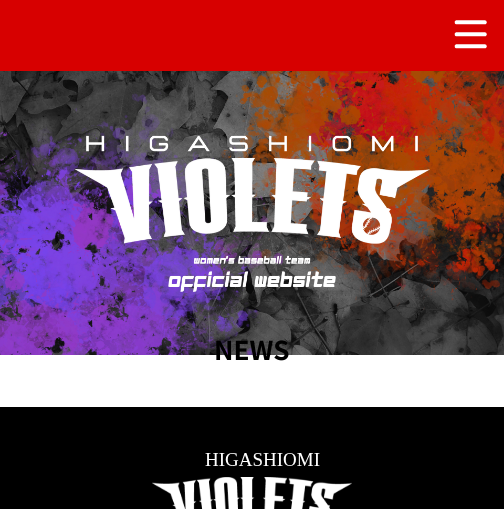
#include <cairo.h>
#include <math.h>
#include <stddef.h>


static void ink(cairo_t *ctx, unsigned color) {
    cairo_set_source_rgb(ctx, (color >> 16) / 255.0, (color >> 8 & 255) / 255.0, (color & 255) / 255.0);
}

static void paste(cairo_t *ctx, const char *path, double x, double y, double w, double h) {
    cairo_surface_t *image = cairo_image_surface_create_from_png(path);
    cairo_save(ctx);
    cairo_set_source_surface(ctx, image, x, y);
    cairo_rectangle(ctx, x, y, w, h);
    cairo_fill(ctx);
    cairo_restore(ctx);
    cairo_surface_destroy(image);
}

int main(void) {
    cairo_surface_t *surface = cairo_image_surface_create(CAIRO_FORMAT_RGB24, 504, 509);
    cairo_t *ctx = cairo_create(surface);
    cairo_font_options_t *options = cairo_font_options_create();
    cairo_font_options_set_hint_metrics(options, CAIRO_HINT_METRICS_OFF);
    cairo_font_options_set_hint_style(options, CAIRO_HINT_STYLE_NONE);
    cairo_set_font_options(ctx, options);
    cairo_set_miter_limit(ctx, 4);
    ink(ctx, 0xFFFFFF);
    cairo_paint(ctx);
    ink(ctx, 0xD70000);
    cairo_rectangle(ctx, 0, 0, 504, 71);
    cairo_fill(ctx);
    paste(ctx, "media/1.png", 454, 20, 33, 29);
    paste(ctx, "media/2.png", 0, 71, 504, 284);
    cairo_select_font_face(ctx, "Noto Sans JP", CAIRO_FONT_SLANT_NORMAL, CAIRO_FONT_WEIGHT_BOLD);
    cairo_set_font_size(ctx, 26);
    ink(ctx, 0x000000);
    cairo_move_to(ctx, 214, 360);
    cairo_show_text(ctx, "NEWS");
    cairo_rectangle(ctx, 0, 407, 504, 102);
    cairo_fill(ctx);
    paste(ctx, "media/3.png", 152, 453, 200, 56);
    cairo_surface_write_to_png(surface, "image.png");
    cairo_font_options_destroy(options);
    cairo_destroy(ctx);
    cairo_surface_destroy(surface);
    return 0;
}
